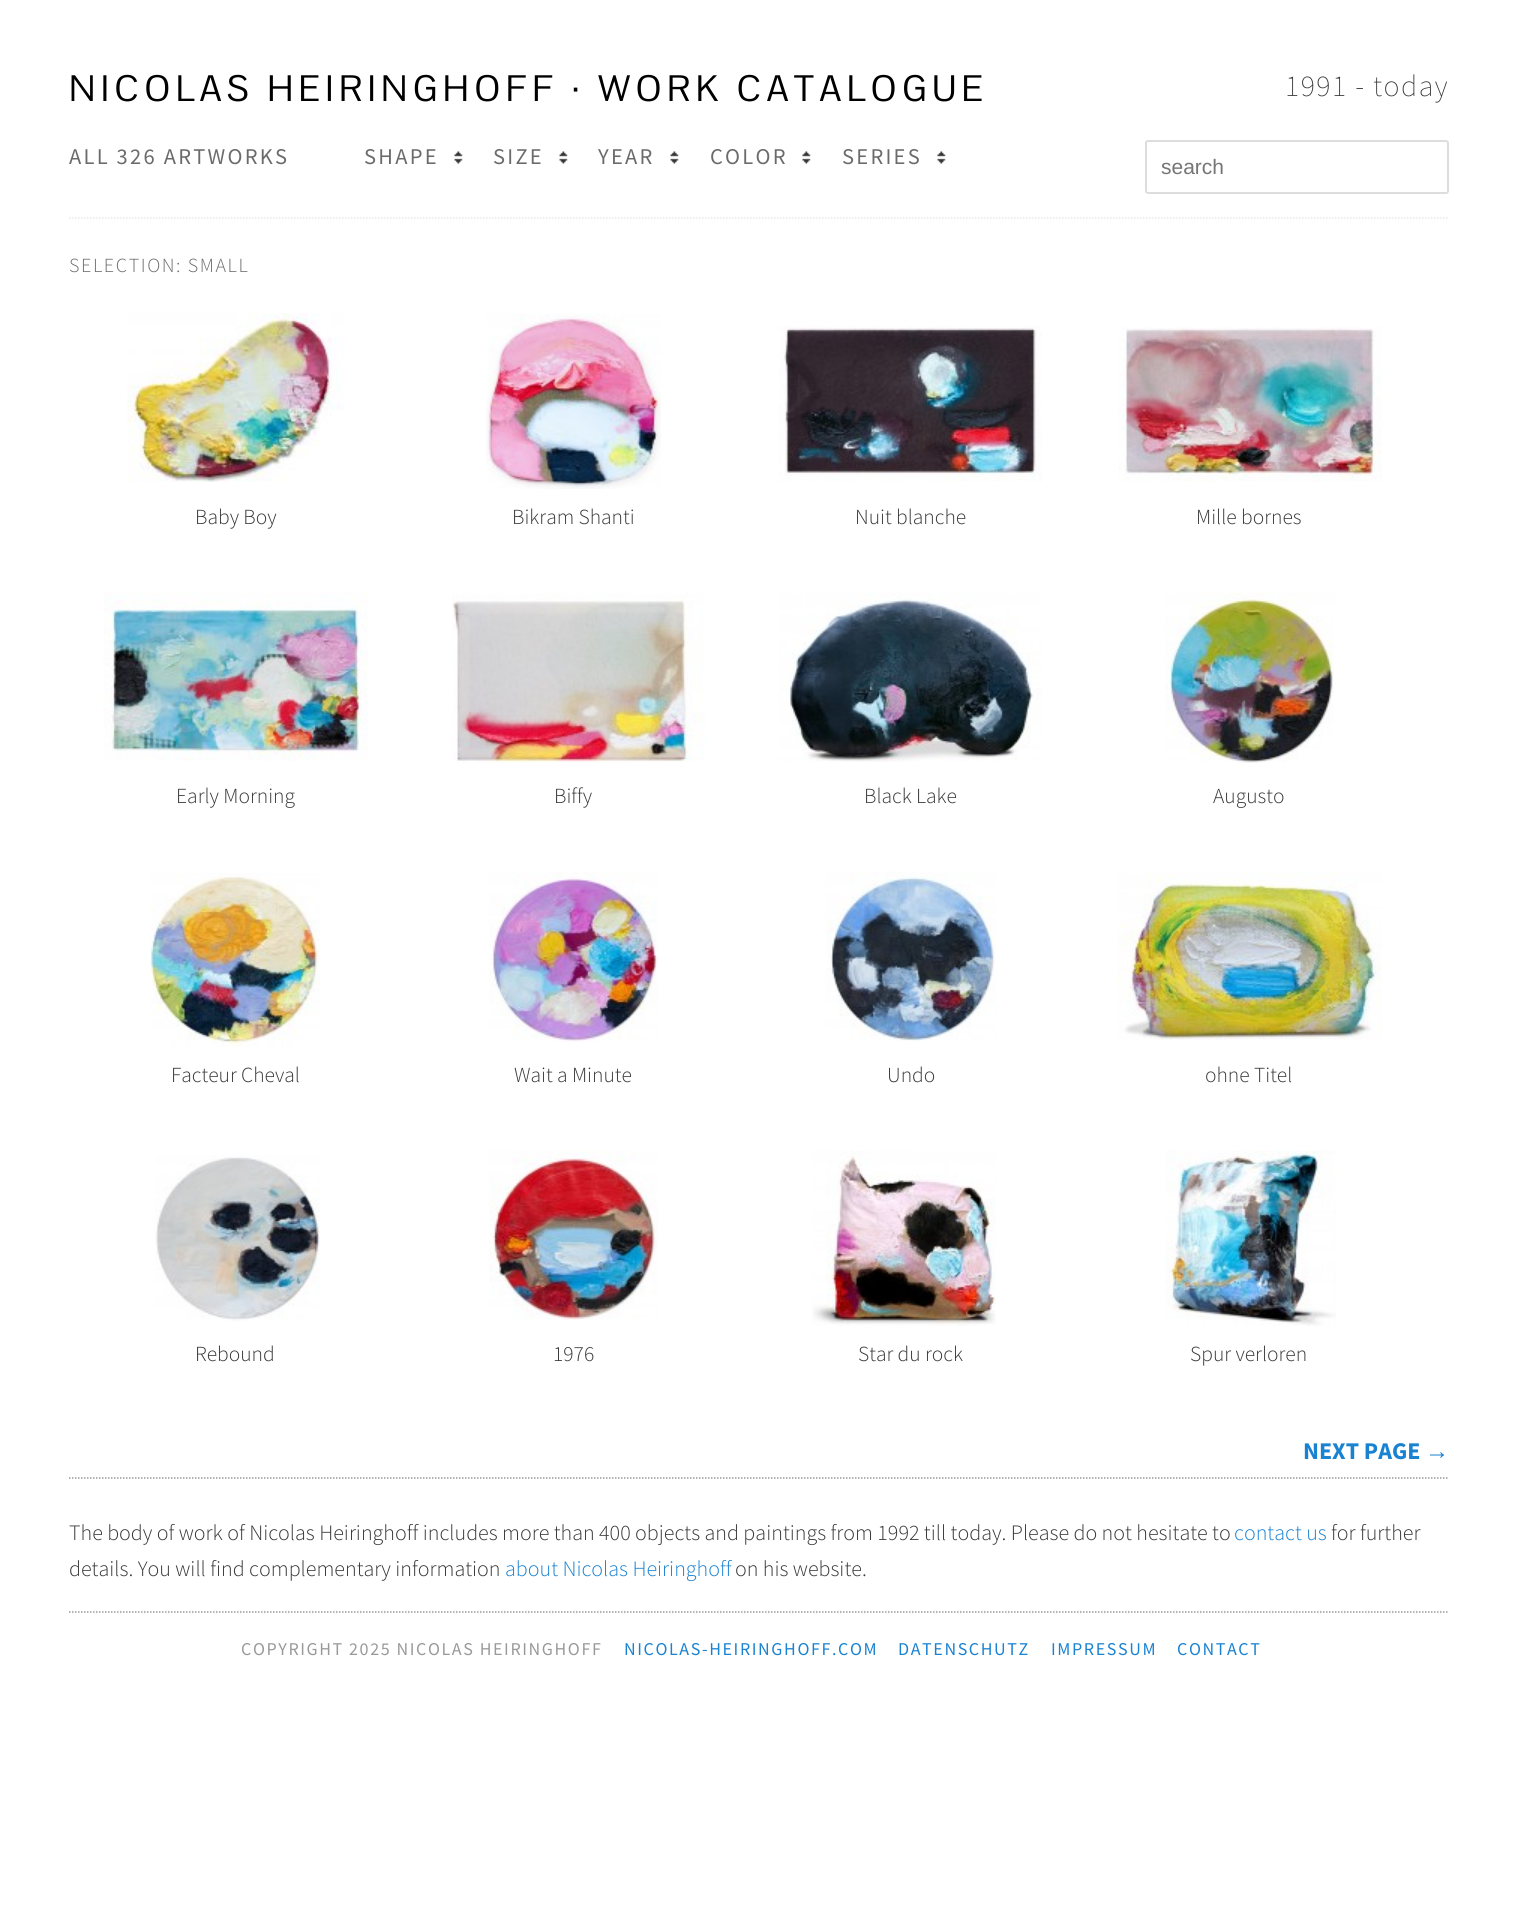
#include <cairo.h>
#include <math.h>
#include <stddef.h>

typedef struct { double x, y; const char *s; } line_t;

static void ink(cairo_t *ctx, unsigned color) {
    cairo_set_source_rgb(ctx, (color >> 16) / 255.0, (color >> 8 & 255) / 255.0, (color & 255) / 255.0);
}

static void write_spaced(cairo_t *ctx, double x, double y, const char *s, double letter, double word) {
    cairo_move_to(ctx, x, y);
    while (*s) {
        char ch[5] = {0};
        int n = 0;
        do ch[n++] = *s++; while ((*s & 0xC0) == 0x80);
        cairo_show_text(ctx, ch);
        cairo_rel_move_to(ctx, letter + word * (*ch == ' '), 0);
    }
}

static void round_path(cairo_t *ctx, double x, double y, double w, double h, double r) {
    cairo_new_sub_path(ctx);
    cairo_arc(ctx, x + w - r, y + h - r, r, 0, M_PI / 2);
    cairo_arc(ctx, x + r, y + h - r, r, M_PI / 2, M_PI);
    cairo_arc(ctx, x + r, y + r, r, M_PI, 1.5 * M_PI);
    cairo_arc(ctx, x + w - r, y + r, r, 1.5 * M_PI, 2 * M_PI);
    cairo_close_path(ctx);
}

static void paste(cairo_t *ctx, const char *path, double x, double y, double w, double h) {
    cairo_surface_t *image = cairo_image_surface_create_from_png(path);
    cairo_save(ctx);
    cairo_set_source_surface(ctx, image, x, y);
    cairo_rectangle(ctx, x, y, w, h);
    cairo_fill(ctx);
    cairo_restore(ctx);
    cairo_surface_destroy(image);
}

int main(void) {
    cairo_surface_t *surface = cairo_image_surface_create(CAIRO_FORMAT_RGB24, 1518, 1929);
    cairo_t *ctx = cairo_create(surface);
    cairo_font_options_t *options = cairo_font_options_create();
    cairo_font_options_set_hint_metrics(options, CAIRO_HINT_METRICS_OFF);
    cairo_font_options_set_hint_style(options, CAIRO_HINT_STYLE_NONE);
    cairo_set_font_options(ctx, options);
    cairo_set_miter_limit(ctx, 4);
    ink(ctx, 0xFFFFFF);
    cairo_paint(ctx);
    cairo_select_font_face(ctx, "Pontano Sans", CAIRO_FONT_SLANT_NORMAL, CAIRO_FONT_WEIGHT_NORMAL);
    cairo_set_font_size(ctx, 36);
    ink(ctx, 0x000000);
    write_spaced(ctx, 69, 101, "NICOLAS HEIRINGHOFF · WORK CATALOGUE", 5.4, 0);
    cairo_select_font_face(ctx, "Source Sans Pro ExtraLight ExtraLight", CAIRO_FONT_SLANT_NORMAL, CAIRO_FONT_WEIGHT_NORMAL);
    cairo_set_font_size(ctx, 30);
    ink(ctx, 0x373737);
    write_spaced(ctx, 1285, 96, "1991 - today", 1.5, 0);
    cairo_select_font_face(ctx, "Source Sans Pro", CAIRO_FONT_SLANT_NORMAL, CAIRO_FONT_WEIGHT_NORMAL);
    cairo_set_font_size(ctx, 22.5);
    ink(ctx, 0x6B6B6B);
    write_spaced(ctx, 69, 164, "ALL 326 ARTWORKS", 2.25, 0);
    write_spaced(ctx, 364, 164, "SHAPE", 2.25, 0);
    paste(ctx, "media/1.png", 454, 151, 9, 13);
    write_spaced(ctx, 493, 164, "SIZE", 2.25, 0);
    paste(ctx, "media/2.png", 559, 151, 9, 13);
    write_spaced(ctx, 598, 164, "YEAR", 2.25, 0);
    paste(ctx, "media/2.png", 670, 151, 9, 13);
    write_spaced(ctx, 710, 164, "COLOR", 2.25, 0);
    paste(ctx, "media/1.png", 802, 151, 9, 13);
    write_spaced(ctx, 842, 164, "SERIES", 2.25, 0);
    paste(ctx, "media/1.png", 937, 151, 9, 13);
    round_path(ctx, 1146, 141, 302, 52, 2);
    ink(ctx, 0xDDDDDD);
    cairo_stroke(ctx);
    cairo_select_font_face(ctx, "Liberation Sans", CAIRO_FONT_SLANT_NORMAL, CAIRO_FONT_WEIGHT_NORMAL);
    cairo_set_font_size(ctx, 21);
    ink(ctx, 0x757575);
    cairo_move_to(ctx, 1161, 174);
    cairo_show_text(ctx, "search");
    cairo_new_path(ctx);
    cairo_move_to(ctx, 69, 218);
    cairo_line_to(ctx, 1449, 218);
    ink(ctx, 0xE7E7E7);
    cairo_set_line_width(ctx, 1.5);
    cairo_set_dash(ctx, (double[]){1.5, 1.5}, 2, 0);
    cairo_stroke(ctx);
    cairo_select_font_face(ctx, "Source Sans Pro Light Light", CAIRO_FONT_SLANT_NORMAL, CAIRO_FONT_WEIGHT_NORMAL);
    cairo_set_font_size(ctx, 20);
    ink(ctx, 0x6B6B6B);
    write_spaced(ctx, 69, 272, "SELECTION: SMALL", 1.6, 0);
    paste(ctx, "media/3.png", 127, 313, 217, 169);
    cairo_set_font_size(ctx, 21.5);
    ink(ctx, 0x373737);
    cairo_move_to(ctx, 195, 524);
    cairo_show_text(ctx, "Baby Boy");
    paste(ctx, "media/4.png", 486, 313, 175, 176);
    cairo_move_to(ctx, 512, 524);
    cairo_show_text(ctx, "Bikram Shanti");
    paste(ctx, "media/5.png", 779, 326, 263, 156);
    cairo_move_to(ctx, 855, 524);
    cairo_show_text(ctx, "Nuit blanche");
    paste(ctx, "media/6.png", 1118, 327, 264, 155);
    cairo_move_to(ctx, 1196, 524);
    cairo_show_text(ctx, "Mille bornes");
    paste(ctx, "media/7.png", 103, 592, 265, 169);
    cairo_move_to(ctx, 176, 803);
    cairo_show_text(ctx, "Early Morning");
    paste(ctx, "media/8.png", 452, 593, 253, 170);
    cairo_move_to(ctx, 554, 803);
    cairo_show_text(ctx, "Biffy");
    paste(ctx, "media/9.png", 779, 592, 263, 170);
    cairo_move_to(ctx, 864, 803);
    cairo_show_text(ctx, "Black Lake");
    paste(ctx, "media/10.png", 1165, 592, 169, 171);
    cairo_move_to(ctx, 1213, 803);
    cairo_show_text(ctx, "Augusto");
    paste(ctx, "media/11.png", 150, 873, 170, 174);
    cairo_move_to(ctx, 171, 1082);
    cairo_show_text(ctx, "Facteur Cheval");
    paste(ctx, "media/12.png", 489, 872, 169, 170);
    cairo_move_to(ctx, 514, 1082);
    cairo_show_text(ctx, "Wait a Minute");
    paste(ctx, "media/13.png", 826, 871, 170, 170);
    cairo_move_to(ctx, 887, 1082);
    cairo_show_text(ctx, "Undo");
    paste(ctx, "media/14.png", 1117, 871, 265, 169);
    cairo_move_to(ctx, 1205, 1082);
    cairo_show_text(ctx, "ohne Titel");
    paste(ctx, "media/15.png", 155, 1155, 165, 166);
    cairo_move_to(ctx, 195, 1361);
    cairo_show_text(ctx, "Rebound");
    paste(ctx, "media/16.png", 489, 1150, 169, 170);
    cairo_move_to(ctx, 553, 1361);
    cairo_show_text(ctx, "1976");
    paste(ctx, "media/17.png", 812, 1150, 184, 176);
    cairo_move_to(ctx, 858, 1361);
    cairo_show_text(ctx, "Star du rock");
    paste(ctx, "media/18.png", 1165, 1150, 171, 176);
    cairo_move_to(ctx, 1190, 1361);
    cairo_show_text(ctx, "Spur verloren");
    cairo_select_font_face(ctx, "Source Sans Pro", CAIRO_FONT_SLANT_NORMAL, CAIRO_FONT_WEIGHT_BOLD);
    cairo_set_font_size(ctx, 24);
    ink(ctx, 0x1982D1);
    cairo_move_to(ctx, 1303, 1459);
    cairo_show_text(ctx, "NEXT PAGE");
    cairo_select_font_face(ctx, "Liberation Sans", CAIRO_FONT_SLANT_NORMAL, CAIRO_FONT_WEIGHT_BOLD);
    cairo_move_to(ctx, 1425, 1459);
    cairo_show_text(ctx, "→");
    cairo_new_path(ctx);
    cairo_move_to(ctx, 69, 1478);
    cairo_line_to(ctx, 1449, 1478);
    ink(ctx, 0x999999);
    cairo_stroke(ctx);
    cairo_select_font_face(ctx, "Source Sans Pro Light Light", CAIRO_FONT_SLANT_NORMAL, CAIRO_FONT_WEIGHT_NORMAL);
    cairo_set_font_size(ctx, 22);
    ink(ctx, 0x373737);
    cairo_move_to(ctx, 69, 1540);
    cairo_show_text(ctx, "The body of work of Nicolas Heiringhoff includes more than 400 objects and paintings from 1992 till today. Please do not hesitate to");
    ink(ctx, 0x1982D1);
    cairo_move_to(ctx, 1234, 1540);
    cairo_show_text(ctx, "contact us");
    ink(ctx, 0x373737);
    cairo_move_to(ctx, 1331, 1540);
    cairo_show_text(ctx, "for further");
    cairo_move_to(ctx, 69, 1576);
    cairo_show_text(ctx, "details. You will find complementary information");
    ink(ctx, 0x1982D1);
    cairo_move_to(ctx, 505, 1576);
    cairo_show_text(ctx, "about Nicolas Heiringhoff");
    ink(ctx, 0x373737);
    cairo_move_to(ctx, 735, 1576);
    cairo_show_text(ctx, "on his website.");
    cairo_new_path(ctx);
    cairo_move_to(ctx, 69, 1612);
    cairo_line_to(ctx, 1449, 1612);
    ink(ctx, 0x999999);
    cairo_stroke(ctx);
    cairo_select_font_face(ctx, "Source Sans Pro", CAIRO_FONT_SLANT_NORMAL, CAIRO_FONT_WEIGHT_NORMAL);
    cairo_set_font_size(ctx, 18);
    write_spaced(ctx, 241, 1655, "COPYRIGHT 2025 NICOLAS HEIRINGHOFF", 1.6, 0);
    ink(ctx, 0x1982D1);
    {
        static const line_t items[] = {
            {624, 1655, "NICOLAS-HEIRINGHOFF.COM"},
            {898, 1655, "DATENSCHUTZ"},
            {1051, 1655, "IMPRESSUM"},
            {1177, 1655, "CONTACT"},
        };
        for (size_t i = 0; i < sizeof items / sizeof *items; i++) {
            write_spaced(ctx, items[i].x, items[i].y, items[i].s, 1.6, 0);
        }
    }
    cairo_surface_write_to_png(surface, "image.png");
    cairo_font_options_destroy(options);
    cairo_destroy(ctx);
    cairo_surface_destroy(surface);
    return 0;
}
